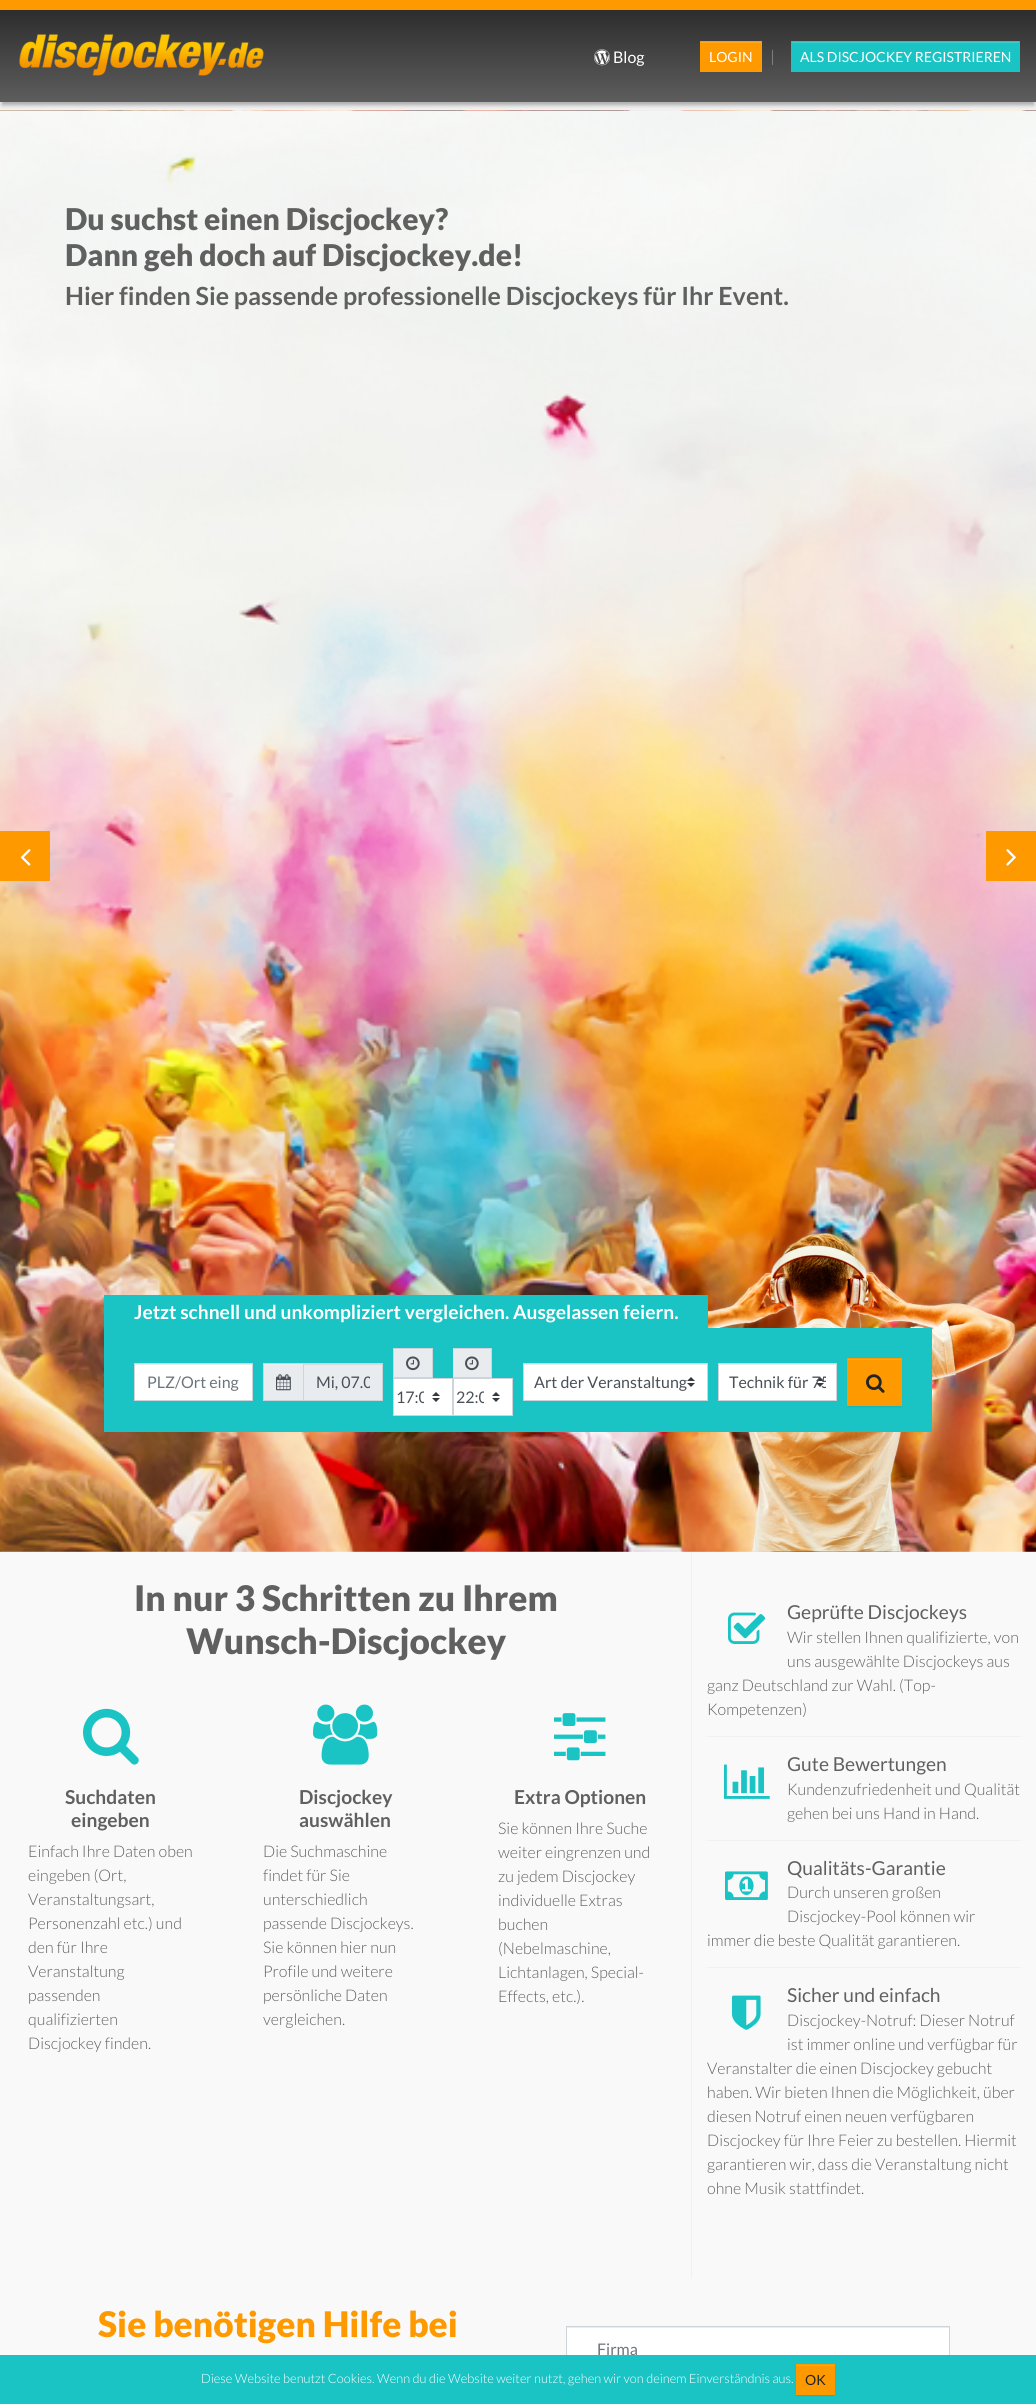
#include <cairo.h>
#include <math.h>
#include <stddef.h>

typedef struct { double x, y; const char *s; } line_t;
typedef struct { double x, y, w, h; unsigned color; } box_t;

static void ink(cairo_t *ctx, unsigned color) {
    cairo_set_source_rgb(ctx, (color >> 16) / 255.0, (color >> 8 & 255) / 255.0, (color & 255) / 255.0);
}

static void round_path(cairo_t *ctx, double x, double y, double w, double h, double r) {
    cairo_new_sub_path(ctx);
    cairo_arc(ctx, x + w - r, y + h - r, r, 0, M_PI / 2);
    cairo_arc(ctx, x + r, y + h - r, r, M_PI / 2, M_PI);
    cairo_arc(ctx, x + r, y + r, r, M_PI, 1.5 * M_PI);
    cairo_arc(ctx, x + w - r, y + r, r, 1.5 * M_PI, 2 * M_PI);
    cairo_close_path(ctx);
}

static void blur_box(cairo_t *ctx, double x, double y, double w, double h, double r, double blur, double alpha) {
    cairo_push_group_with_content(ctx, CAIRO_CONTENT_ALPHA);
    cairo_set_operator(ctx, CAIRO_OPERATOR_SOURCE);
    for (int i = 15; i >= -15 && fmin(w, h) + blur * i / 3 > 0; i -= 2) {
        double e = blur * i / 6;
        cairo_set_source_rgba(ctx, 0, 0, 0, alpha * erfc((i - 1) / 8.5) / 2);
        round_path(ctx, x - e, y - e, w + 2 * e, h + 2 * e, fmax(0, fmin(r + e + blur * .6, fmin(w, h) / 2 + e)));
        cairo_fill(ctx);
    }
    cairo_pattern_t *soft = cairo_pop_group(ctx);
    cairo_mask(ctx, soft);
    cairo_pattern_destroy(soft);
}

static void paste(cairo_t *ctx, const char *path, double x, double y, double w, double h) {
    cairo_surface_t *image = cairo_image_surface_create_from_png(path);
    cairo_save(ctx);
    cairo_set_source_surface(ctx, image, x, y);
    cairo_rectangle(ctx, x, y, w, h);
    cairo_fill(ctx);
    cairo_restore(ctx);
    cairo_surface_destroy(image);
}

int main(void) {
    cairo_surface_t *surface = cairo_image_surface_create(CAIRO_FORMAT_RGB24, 1036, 2404);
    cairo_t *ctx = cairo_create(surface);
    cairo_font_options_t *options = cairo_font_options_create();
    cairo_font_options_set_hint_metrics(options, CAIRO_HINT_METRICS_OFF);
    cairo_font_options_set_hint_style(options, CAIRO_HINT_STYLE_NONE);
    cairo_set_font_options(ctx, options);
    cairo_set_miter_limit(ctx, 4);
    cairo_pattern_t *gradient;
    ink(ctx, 0xF1F1F1);
    cairo_paint(ctx);
    paste(ctx, "media/3.png", 0, 110, 1036, 1442);
    ink(ctx, 0x000000);
    blur_box(ctx, 2, 7, 1032, 98, 0, 2, 0.3);
    gradient = cairo_pattern_create_linear(518, 10, 518, 102);
    cairo_pattern_add_color_stop_rgba(gradient, 0, 0.176, 0.176, 0.176, 1);
    cairo_pattern_add_color_stop_rgba(gradient, 1, 0.365, 0.365, 0.365, 1);
    cairo_set_source(ctx, gradient);
    cairo_pattern_destroy(gradient);
    cairo_rectangle(ctx, 0, 10, 1036, 92);
    cairo_fill(ctx);
    ink(ctx, 0xFF9900);
    cairo_rectangle(ctx, 0, 0, 1036, 10);
    cairo_fill(ctx);
    paste(ctx, "media/1.png", 19, 34, 245, 42);
    paste(ctx, "media/2.png", 594, 49, 16, 17);
    cairo_select_font_face(ctx, "Lato", CAIRO_FONT_SLANT_NORMAL, CAIRO_FONT_WEIGHT_NORMAL);
    cairo_set_font_size(ctx, 16);
    ink(ctx, 0xFFFFFF);
    cairo_move_to(ctx, 613, 63);
    cairo_show_text(ctx, "Blog");
    ink(ctx, 0xFF9900);
    cairo_rectangle(ctx, 700, 41, 62, 31);
    cairo_fill(ctx);
    ink(ctx, 0xFFA826);
    cairo_rectangle(ctx, 701, 42, 60, 1);
    cairo_fill(ctx);
    cairo_set_font_size(ctx, 14);
    ink(ctx, 0xFFFFFF);
    cairo_move_to(ctx, 709, 62);
    cairo_show_text(ctx, "LOGIN");
    cairo_select_font_face(ctx, "Lato Light", CAIRO_FONT_SLANT_NORMAL, CAIRO_FONT_WEIGHT_NORMAL);
    cairo_set_font_size(ctx, 16);
    ink(ctx, 0xA2A2A2);
    cairo_move_to(ctx, 770, 62);
    cairo_show_text(ctx, "|");
    ink(ctx, 0x1AC4C4);
    cairo_rectangle(ctx, 791, 41, 229, 31);
    cairo_fill(ctx);
    ink(ctx, 0x3CCDCD);
    cairo_rectangle(ctx, 792, 42, 227, 1);
    cairo_fill(ctx);
    cairo_select_font_face(ctx, "Lato", CAIRO_FONT_SLANT_NORMAL, CAIRO_FONT_WEIGHT_NORMAL);
    cairo_set_font_size(ctx, 14);
    ink(ctx, 0xFFFFFF);
    cairo_move_to(ctx, 800, 62);
    cairo_show_text(ctx, "ALS DISCJOCKEY REGISTRIEREN");
    cairo_select_font_face(ctx, "Lato Black", CAIRO_FONT_SLANT_NORMAL, CAIRO_FONT_WEIGHT_NORMAL);
    cairo_set_font_size(ctx, 30);
    ink(ctx, 0x606060);
    cairo_move_to(ctx, 65, 230);
    cairo_show_text(ctx, "Du suchst einen Discjockey?");
    cairo_move_to(ctx, 65, 266);
    cairo_show_text(ctx, "Dann geh doch auf Discjockey.de!");
    cairo_select_font_face(ctx, "Lato", CAIRO_FONT_SLANT_NORMAL, CAIRO_FONT_WEIGHT_BOLD);
    cairo_set_font_size(ctx, 25);
    cairo_move_to(ctx, 65, 305);
    cairo_show_text(ctx, "Hier finden Sie passende professionelle Discjockeys für Ihr Event.");
    paste(ctx, "media/4.png", 708, 1231, 309, 321);
    ink(ctx, 0xFF9900);
    cairo_rectangle(ctx, 0, 831, 50, 50);
    cairo_fill(ctx);
    paste(ctx, "media/5.png", 20, 849, 11, 17);
    cairo_rectangle(ctx, 986, 831, 50, 50);
    cairo_fill(ctx);
    paste(ctx, "media/6.png", 1006, 849, 10, 17);
    ink(ctx, 0x1AC4C4);
    cairo_rectangle(ctx, 104, 1295, 604, 33);
    cairo_fill(ctx);
    cairo_set_font_size(ctx, 19.2);
    ink(ctx, 0xFFFFFF);
    cairo_move_to(ctx, 134, 1319);
    cairo_show_text(ctx, "Jetzt schnell und unkompliziert vergleichen. Ausgelassen feiern.");
    {
        static const box_t items[] = {
            {104, 1328, 828, 104, 0x1AC4C4},
            {135, 1365, 117, 35, 0xFFFFFF},
            {135, 1364, 117, 1, 0xECECEC},
        };
        for (size_t i = 0; i < sizeof items / sizeof *items; i++) {
            ink(ctx, items[i].color);
            cairo_rectangle(ctx, items[i].x, items[i].y, items[i].w, items[i].h);
            cairo_fill(ctx);
        }
    }
    cairo_rectangle(ctx, 134.5, 1363.5, 118, 37);
    ink(ctx, 0xCED4DA);
    cairo_set_line_width(ctx, 1);
    cairo_stroke(ctx);
    cairo_select_font_face(ctx, "Lato", CAIRO_FONT_SLANT_NORMAL, CAIRO_FONT_WEIGHT_NORMAL);
    cairo_set_font_size(ctx, 16);
    ink(ctx, 0x6C757D);
    cairo_move_to(ctx, 147, 1388);
    cairo_show_text(ctx, "PLZ/Ort eing");
    ink(ctx, 0xE9ECEF);
    cairo_rectangle(ctx, 263.5, 1363.5, 40, 37);
    cairo_fill_preserve(ctx);
    ink(ctx, 0xCED4DA);
    cairo_stroke(ctx);
    paste(ctx, "media/7.png", 276, 1374, 15, 17);
    ink(ctx, 0xE9ECEF);
    cairo_rectangle(ctx, 304, 1365, 78, 35);
    cairo_fill(ctx);
    ink(ctx, 0xD8DADD);
    cairo_rectangle(ctx, 304, 1364, 78, 1);
    cairo_fill(ctx);
    cairo_rectangle(ctx, 303.5, 1363.5, 79, 37);
    ink(ctx, 0xCED4DA);
    cairo_stroke(ctx);
    cairo_save(ctx);
    cairo_rectangle(ctx, 316, 1370, 54, 24);
    cairo_clip(ctx);
    ink(ctx, 0x495057);
    cairo_move_to(ctx, 316, 1388);
    cairo_show_text(ctx, "Mi, 07.0");
    cairo_restore(ctx);
    ink(ctx, 0xFFFFFF);
    cairo_rectangle(ctx, 524, 1365, 183, 35);
    cairo_fill(ctx);
    paste(ctx, "media/8.png", 687, 1377, 8, 10);
    ink(ctx, 0xECECEC);
    cairo_rectangle(ctx, 524, 1364, 183, 1);
    cairo_fill(ctx);
    cairo_rectangle(ctx, 523.5, 1363.5, 184, 37);
    ink(ctx, 0xCED4DA);
    cairo_stroke(ctx);
    ink(ctx, 0x495057);
    cairo_move_to(ctx, 534, 1388);
    cairo_show_text(ctx, "Art der Veranstaltung");
    ink(ctx, 0xFFFFFF);
    cairo_rectangle(ctx, 719, 1365, 117, 35);
    cairo_fill(ctx);
    paste(ctx, "media/8.png", 816, 1377, 8, 10);
    ink(ctx, 0xECECEC);
    cairo_rectangle(ctx, 719, 1364, 117, 1);
    cairo_fill(ctx);
    cairo_rectangle(ctx, 718.5, 1363.5, 118, 37);
    ink(ctx, 0xCED4DA);
    cairo_stroke(ctx);
    cairo_save(ctx);
    cairo_rectangle(ctx, 729, 1370, 97, 24);
    cairo_clip(ctx);
    ink(ctx, 0x495057);
    cairo_move_to(ctx, 729, 1388);
    cairo_show_text(ctx, "Technik für 75");
    cairo_restore(ctx);
    ink(ctx, 0x000000);
    blur_box(ctx, 847, 1359, 55, 48, 0, 0.5, 0.07);
    ink(ctx, 0xFF9900);
    cairo_rectangle(ctx, 847, 1358, 55, 48);
    cairo_fill(ctx);
    ink(ctx, 0xFFA826);
    cairo_rectangle(ctx, 848, 1359, 53, 1);
    cairo_fill(ctx);
    paste(ctx, "media/9.png", 866, 1374, 19, 19);
    ink(ctx, 0xE9ECEF);
    cairo_rectangle(ctx, 393.5, 1348.5, 39, 29);
    cairo_fill_preserve(ctx);
    ink(ctx, 0xCED4DA);
    cairo_stroke(ctx);
    paste(ctx, "media/10.png", 406, 1356, 14, 15);
    ink(ctx, 0xFFFFFF);
    cairo_rectangle(ctx, 394, 1379, 58, 36);
    cairo_fill(ctx);
    paste(ctx, "media/8.png", 432, 1392, 8, 10);
    cairo_rectangle(ctx, 393.5, 1378.5, 59, 37);
    ink(ctx, 0xCED4DA);
    cairo_stroke(ctx);
    cairo_save(ctx);
    cairo_rectangle(ctx, 396, 1385, 28, 24);
    cairo_clip(ctx);
    ink(ctx, 0x495057);
    cairo_move_to(ctx, 396, 1403);
    cairo_show_text(ctx, "17:0");
    cairo_restore(ctx);
    {
        static const box_t items[] = {
            {453, 1349, 38, 28, 0xE9ECEF},
            {453, 1348, 39, 1, 0xCED4DA},
            {491, 1348, 1, 30, 0xCED4DA},
            {453, 1377, 39, 1, 0xCED4DA},
        };
        for (size_t i = 0; i < sizeof items / sizeof *items; i++) {
            ink(ctx, items[i].color);
            cairo_rectangle(ctx, items[i].x, items[i].y, items[i].w, items[i].h);
            cairo_fill(ctx);
        }
    }
    paste(ctx, "media/10.png", 465, 1356, 14, 15);
    ink(ctx, 0xFFFFFF);
    cairo_rectangle(ctx, 454, 1379, 58, 36);
    cairo_fill(ctx);
    paste(ctx, "media/8.png", 492, 1392, 8, 10);
    cairo_rectangle(ctx, 453.5, 1378.5, 59, 37);
    ink(ctx, 0xCED4DA);
    cairo_stroke(ctx);
    cairo_save(ctx);
    cairo_rectangle(ctx, 456, 1385, 28, 24);
    cairo_clip(ctx);
    ink(ctx, 0x495057);
    cairo_move_to(ctx, 456, 1403);
    cairo_show_text(ctx, "22:0");
    cairo_restore(ctx);
    ink(ctx, 0xF9F9F9);
    cairo_rectangle(ctx, 0, 1552, 1036, 803);
    cairo_fill(ctx);
    cairo_select_font_face(ctx, "Lato Black", CAIRO_FONT_SLANT_NORMAL, CAIRO_FONT_WEIGHT_NORMAL);
    cairo_set_font_size(ctx, 35.25);
    ink(ctx, 0x606060);
    cairo_move_to(ctx, 134, 1611);
    cairo_show_text(ctx, "In nur 3 Schritten zu Ihrem");
    cairo_move_to(ctx, 186, 1654);
    cairo_show_text(ctx, "Wunsch-Discjockey");
    paste(ctx, "media/11.png", 83, 1708, 56, 57);
    cairo_select_font_face(ctx, "Lato", CAIRO_FONT_SLANT_NORMAL, CAIRO_FONT_WEIGHT_BOLD);
    cairo_set_font_size(ctx, 19.2);
    cairo_move_to(ctx, 65, 1804);
    cairo_show_text(ctx, "Suchdaten");
    cairo_move_to(ctx, 71, 1827);
    cairo_show_text(ctx, "eingeben");
    cairo_select_font_face(ctx, "Lato Light", CAIRO_FONT_SLANT_NORMAL, CAIRO_FONT_WEIGHT_NORMAL);
    cairo_set_font_size(ctx, 16);
    {
        static const line_t items[] = {
            {28, 1857, "Einfach Ihre Daten oben"},
            {28, 1881, "eingeben (Ort,"},
            {28, 1905, "Veranstaltungsart,"},
            {28, 1929, "Personenzahl etc.) und"},
            {28, 1953, "den für Ihre"},
            {28, 1977, "Veranstaltung"},
            {28, 2001, "passenden"},
            {28, 2025, "qualifizierten"},
            {28, 2049, "Discjockey finden."},
        };
        for (size_t i = 0; i < sizeof items / sizeof *items; i++) {
            cairo_move_to(ctx, items[i].x, items[i].y);
            cairo_show_text(ctx, items[i].s);
        }
    }
    paste(ctx, "media/12.png", 313, 1704, 65, 61);
    cairo_select_font_face(ctx, "Lato", CAIRO_FONT_SLANT_NORMAL, CAIRO_FONT_WEIGHT_BOLD);
    cairo_set_font_size(ctx, 19.2);
    cairo_move_to(ctx, 299, 1804);
    cairo_show_text(ctx, "Discjockey");
    cairo_move_to(ctx, 299, 1827);
    cairo_show_text(ctx, "auswählen");
    cairo_select_font_face(ctx, "Lato Light", CAIRO_FONT_SLANT_NORMAL, CAIRO_FONT_WEIGHT_NORMAL);
    cairo_set_font_size(ctx, 16);
    {
        static const line_t items[] = {
            {263, 1857, "Die Suchmaschine"},
            {263, 1881, "findet für Sie"},
            {263, 1905, "unterschiedlich"},
            {263, 1929, "passende Discjockeys."},
            {263, 1953, "Sie können hier nun"},
            {263, 1977, "Profile und weitere"},
            {263, 2001, "persönliche Daten"},
            {263, 2025, "vergleichen."},
        };
        for (size_t i = 0; i < sizeof items / sizeof *items; i++) {
            cairo_move_to(ctx, items[i].x, items[i].y);
            cairo_show_text(ctx, items[i].s);
        }
    }
    paste(ctx, "media/13.png", 554, 1713, 52, 48);
    cairo_select_font_face(ctx, "Lato", CAIRO_FONT_SLANT_NORMAL, CAIRO_FONT_WEIGHT_BOLD);
    cairo_set_font_size(ctx, 19.2);
    cairo_move_to(ctx, 514, 1804);
    cairo_show_text(ctx, "Extra Optionen");
    cairo_select_font_face(ctx, "Lato Light", CAIRO_FONT_SLANT_NORMAL, CAIRO_FONT_WEIGHT_NORMAL);
    cairo_set_font_size(ctx, 16);
    {
        static const line_t items[] = {
            {498, 1834, "Sie können Ihre Suche"},
            {498, 1858, "weiter eingrenzen und"},
            {498, 1882, "zu jedem Discjockey"},
            {498, 1906, "individuelle Extras"},
            {498, 1930, "buchen"},
            {498, 1954, "(Nebelmaschine,"},
            {498, 1978, "Lichtanlagen, Special-"},
            {498, 2002, "Effects, etc.)."},
        };
        for (size_t i = 0; i < sizeof items / sizeof *items; i++) {
            cairo_move_to(ctx, items[i].x, items[i].y);
            cairo_show_text(ctx, items[i].s);
        }
    }
    ink(ctx, 0xF1F1F1);
    cairo_rectangle(ctx, 691, 1552, 1, 726);
    cairo_fill(ctx);
    cairo_rectangle(ctx, 707, 1736, 314, 1);
    cairo_fill(ctx);
    paste(ctx, "media/14.png", 728, 1612, 38, 32);
    cairo_select_font_face(ctx, "Lato", CAIRO_FONT_SLANT_NORMAL, CAIRO_FONT_WEIGHT_NORMAL);
    cairo_set_font_size(ctx, 19.2);
    ink(ctx, 0x606060);
    cairo_move_to(ctx, 787, 1619);
    cairo_show_text(ctx, "Geprüfte Discjockeys");
    cairo_select_font_face(ctx, "Lato Light", CAIRO_FONT_SLANT_NORMAL, CAIRO_FONT_WEIGHT_NORMAL);
    cairo_set_font_size(ctx, 16);
    {
        static const line_t items[] = {
            {787, 1643, "Wir stellen Ihnen qualifizierte, von"},
            {787, 1667, "uns ausgewählte Discjockeys aus"},
            {707, 1691, "ganz Deutschland zur Wahl. (Top-"},
            {707, 1715, "Kompetenzen)"},
        };
        for (size_t i = 0; i < sizeof items / sizeof *items; i++) {
            cairo_move_to(ctx, items[i].x, items[i].y);
            cairo_show_text(ctx, items[i].s);
        }
    }
    ink(ctx, 0xF1F1F1);
    cairo_rectangle(ctx, 707, 1840, 314, 1);
    cairo_fill(ctx);
    paste(ctx, "media/15.png", 724, 1764, 46, 35);
    cairo_select_font_face(ctx, "Lato", CAIRO_FONT_SLANT_NORMAL, CAIRO_FONT_WEIGHT_NORMAL);
    cairo_set_font_size(ctx, 19.2);
    ink(ctx, 0x606060);
    cairo_move_to(ctx, 787, 1771);
    cairo_show_text(ctx, "Gute Bewertungen");
    cairo_select_font_face(ctx, "Lato Light", CAIRO_FONT_SLANT_NORMAL, CAIRO_FONT_WEIGHT_NORMAL);
    cairo_set_font_size(ctx, 16);
    cairo_move_to(ctx, 787, 1795);
    cairo_show_text(ctx, "Kundenzufriedenheit und Qualität");
    cairo_move_to(ctx, 787, 1819);
    cairo_show_text(ctx, "gehen bei uns Hand in Hand.");
    ink(ctx, 0xF1F1F1);
    cairo_rectangle(ctx, 707, 1967, 314, 1);
    cairo_fill(ctx);
    cairo_select_font_face(ctx, "Lato", CAIRO_FONT_SLANT_NORMAL, CAIRO_FONT_WEIGHT_NORMAL);
    cairo_set_font_size(ctx, 19.2);
    ink(ctx, 0x606060);
    cairo_move_to(ctx, 787, 1875);
    cairo_show_text(ctx, "Qualitäts-Garantie");
    paste(ctx, "media/16.png", 725, 1871, 43, 29);
    cairo_select_font_face(ctx, "Lato Light", CAIRO_FONT_SLANT_NORMAL, CAIRO_FONT_WEIGHT_NORMAL);
    cairo_set_font_size(ctx, 16);
    {
        static const line_t items[] = {
            {787, 1898, "Durch unseren großen"},
            {787, 1922, "Discjockey-Pool können wir"},
            {707, 1946, "immer die beste Qualität garantieren."},
        };
        for (size_t i = 0; i < sizeof items / sizeof *items; i++) {
            cairo_move_to(ctx, items[i].x, items[i].y);
            cairo_show_text(ctx, items[i].s);
        }
    }
    paste(ctx, "media/17.png", 732, 1995, 29, 35);
    cairo_select_font_face(ctx, "Lato", CAIRO_FONT_SLANT_NORMAL, CAIRO_FONT_WEIGHT_NORMAL);
    cairo_set_font_size(ctx, 19.2);
    cairo_move_to(ctx, 787, 2002);
    cairo_show_text(ctx, "Sicher und einfach");
    cairo_select_font_face(ctx, "Lato Light", CAIRO_FONT_SLANT_NORMAL, CAIRO_FONT_WEIGHT_NORMAL);
    cairo_set_font_size(ctx, 16);
    {
        static const line_t items[] = {
            {787, 2026, "Discjockey-Notruf: Dieser Notruf"},
            {787, 2050, "ist immer online und verfügbar für"},
            {707, 2074, "Veranstalter die einen Discjockey gebucht"},
            {707, 2098, "haben. Wir bieten Ihnen die Möglichkeit, über"},
            {707, 2122, "diesen Notruf einen neuen verfügbaren"},
            {707, 2146, "Discjockey für Ihre Feier zu bestellen. Hiermit"},
            {707, 2170, "garantieren wir, dass die Veranstaltung nicht"},
            {707, 2194, "ohne Musik stattfindet."},
        };
        for (size_t i = 0; i < sizeof items / sizeof *items; i++) {
            cairo_move_to(ctx, items[i].x, items[i].y);
            cairo_show_text(ctx, items[i].s);
        }
    }
    cairo_select_font_face(ctx, "Lato Black", CAIRO_FONT_SLANT_NORMAL, CAIRO_FONT_WEIGHT_NORMAL);
    cairo_set_font_size(ctx, 35.25);
    ink(ctx, 0xFF9900);
    cairo_move_to(ctx, 98, 2337);
    cairo_show_text(ctx, "Sie benötigen Hilfe bei");
    ink(ctx, 0xFFFFFF);
    cairo_rectangle(ctx, 567, 2328, 382, 27);
    cairo_fill(ctx);
    ink(ctx, 0xECECEC);
    cairo_rectangle(ctx, 567, 2327, 382, 1);
    cairo_fill(ctx);
    cairo_rectangle(ctx, 566.5, 2326.5, 383, 45);
    ink(ctx, 0xCED4DA);
    cairo_stroke(ctx);
    cairo_select_font_face(ctx, "Lato", CAIRO_FONT_SLANT_NORMAL, CAIRO_FONT_WEIGHT_NORMAL);
    cairo_set_font_size(ctx, 16);
    ink(ctx, 0x6C757D);
    cairo_move_to(ctx, 597, 2355);
    cairo_show_text(ctx, "Firma");
    ink(ctx, 0x1AC4C4);
    cairo_rectangle(ctx, 0, 2355, 1036, 49);
    cairo_fill(ctx);
    cairo_select_font_face(ctx, "Lato Light", CAIRO_FONT_SLANT_NORMAL, CAIRO_FONT_WEIGHT_NORMAL);
    cairo_set_font_size(ctx, 12.8);
    ink(ctx, 0xFFFFFF);
    cairo_move_to(ctx, 201, 2383);
    cairo_show_text(ctx, "Diese Website benutzt Cookies. Wenn du die Website weiter nutzt, gehen wir von deinem Einverständnis aus.");
    ink(ctx, 0x000000);
    blur_box(ctx, 796, 2365, 39, 31, 0, 0.5, 0.07);
    ink(ctx, 0xFF9900);
    cairo_rectangle(ctx, 796, 2364, 39, 31);
    cairo_fill(ctx);
    ink(ctx, 0xFFA826);
    cairo_rectangle(ctx, 797, 2365, 37, 1);
    cairo_fill(ctx);
    cairo_select_font_face(ctx, "Lato", CAIRO_FONT_SLANT_NORMAL, CAIRO_FONT_WEIGHT_NORMAL);
    cairo_set_font_size(ctx, 14);
    ink(ctx, 0x212529);
    cairo_move_to(ctx, 805, 2385);
    cairo_show_text(ctx, "OK");
    cairo_surface_write_to_png(surface, "image.png");
    cairo_font_options_destroy(options);
    cairo_destroy(ctx);
    cairo_surface_destroy(surface);
    return 0;
}
